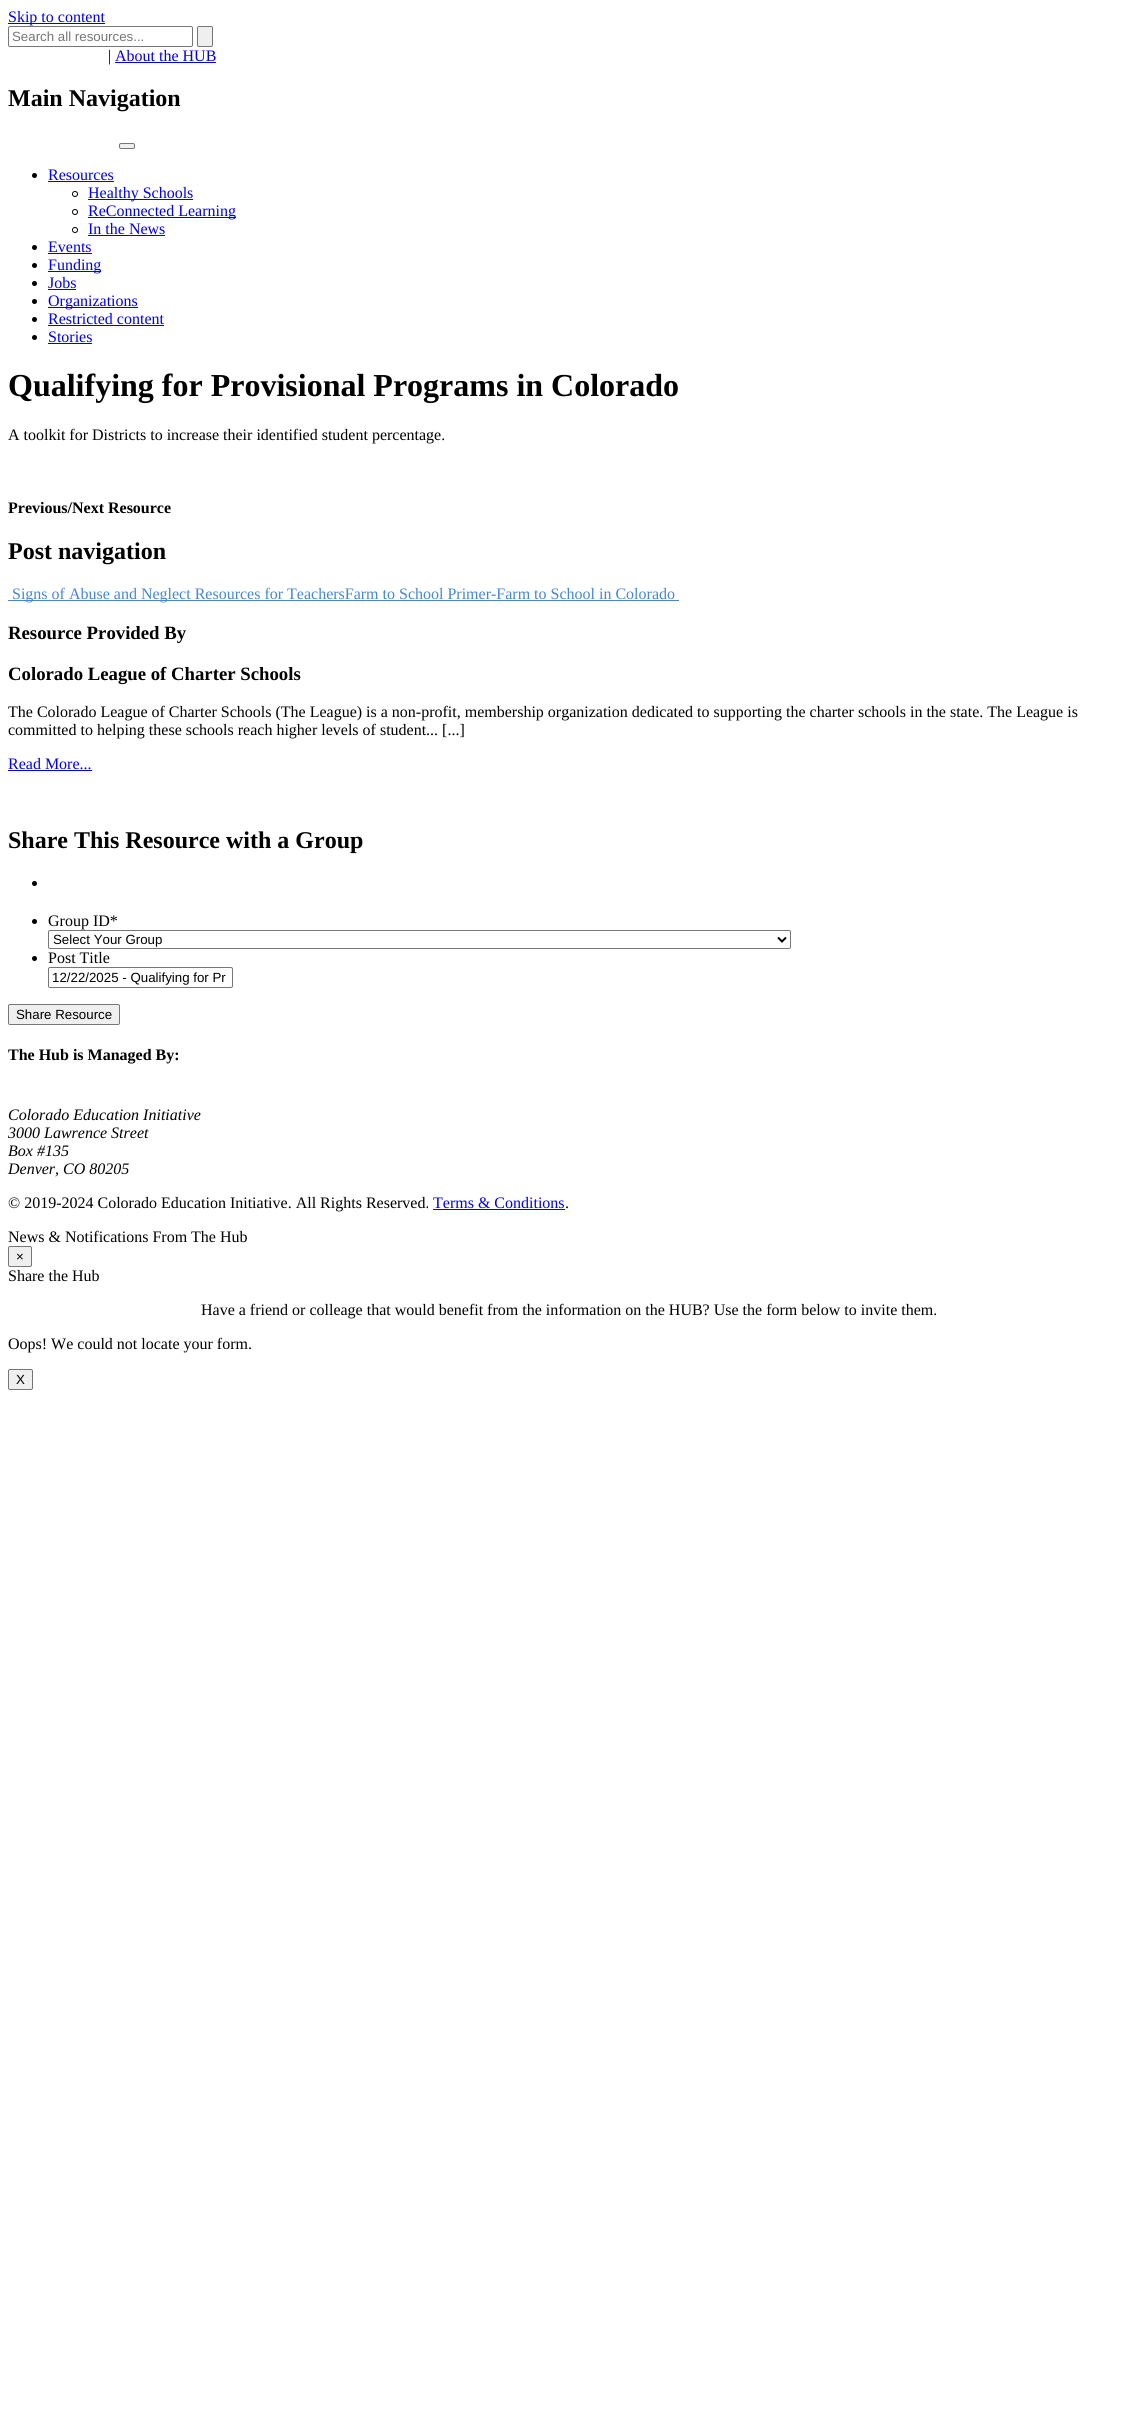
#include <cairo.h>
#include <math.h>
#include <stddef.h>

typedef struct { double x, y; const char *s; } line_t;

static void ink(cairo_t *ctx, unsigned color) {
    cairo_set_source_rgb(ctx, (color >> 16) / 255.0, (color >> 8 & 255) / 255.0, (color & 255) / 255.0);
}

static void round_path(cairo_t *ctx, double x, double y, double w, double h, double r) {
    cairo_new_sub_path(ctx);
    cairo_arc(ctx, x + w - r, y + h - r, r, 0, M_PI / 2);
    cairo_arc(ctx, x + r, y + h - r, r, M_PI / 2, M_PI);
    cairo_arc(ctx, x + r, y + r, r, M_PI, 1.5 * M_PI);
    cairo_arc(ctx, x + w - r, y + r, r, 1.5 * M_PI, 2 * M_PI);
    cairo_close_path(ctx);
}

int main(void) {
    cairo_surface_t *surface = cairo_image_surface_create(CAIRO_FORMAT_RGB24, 1138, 2417);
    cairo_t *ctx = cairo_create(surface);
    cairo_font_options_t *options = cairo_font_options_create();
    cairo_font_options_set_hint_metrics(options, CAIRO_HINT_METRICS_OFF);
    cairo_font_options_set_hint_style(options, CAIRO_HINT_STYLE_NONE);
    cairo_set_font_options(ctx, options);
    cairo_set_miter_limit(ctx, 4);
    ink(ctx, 0xFFFFFF);
    cairo_paint(ctx);
    ink(ctx, 0x0000EE);
    cairo_rectangle(ctx, 8, 23, 97, 1);
    cairo_fill(ctx);
    cairo_select_font_face(ctx, "Liberation Serif", CAIRO_FONT_SLANT_NORMAL, CAIRO_FONT_WEIGHT_NORMAL);
    cairo_set_font_size(ctx, 16);
    cairo_move_to(ctx, 8, 22);
    cairo_show_text(ctx, "Skip to content");
    round_path(ctx, 8.5, 26.5, 184, 20, 1.5);
    ink(ctx, 0x767676);
    cairo_set_line_width(ctx, 1);
    cairo_stroke(ctx);
    cairo_select_font_face(ctx, "Liberation Sans", CAIRO_FONT_SLANT_NORMAL, CAIRO_FONT_WEIGHT_NORMAL);
    cairo_set_font_size(ctx, 13.3);
    ink(ctx, 0x757575);
    cairo_move_to(ctx, 12, 41);
    cairo_show_text(ctx, "Search all resources...");
    ink(ctx, 0xEFEFEF);
    round_path(ctx, 197.5, 26.5, 15, 20, 1.5);
    cairo_fill_preserve(ctx);
    ink(ctx, 0x767676);
    cairo_stroke(ctx);
    cairo_select_font_face(ctx, "Liberation Serif", CAIRO_FONT_SLANT_NORMAL, CAIRO_FONT_WEIGHT_NORMAL);
    cairo_set_font_size(ctx, 16);
    ink(ctx, 0x000000);
    cairo_move_to(ctx, 108, 61);
    cairo_show_text(ctx, "|");
    ink(ctx, 0x0000EE);
    cairo_move_to(ctx, 115, 61);
    cairo_show_text(ctx, "About the HUB");
    cairo_rectangle(ctx, 115, 62, 101, 1);
    cairo_fill(ctx);
    cairo_select_font_face(ctx, "Liberation Serif", CAIRO_FONT_SLANT_NORMAL, CAIRO_FONT_WEIGHT_BOLD);
    cairo_set_font_size(ctx, 24);
    ink(ctx, 0x000000);
    cairo_move_to(ctx, 8, 106);
    cairo_show_text(ctx, "Main Navigation");
    ink(ctx, 0xEFEFEF);
    round_path(ctx, 119.5, 143.5, 15, 5, 1.5);
    cairo_fill_preserve(ctx);
    ink(ctx, 0x767676);
    cairo_stroke(ctx);
    ink(ctx, 0x000000);
    cairo_arc(ctx, 34.5, 175.5, 2.5, 0, 2 * M_PI);
    cairo_fill(ctx);
    cairo_select_font_face(ctx, "Liberation Serif", CAIRO_FONT_SLANT_NORMAL, CAIRO_FONT_WEIGHT_NORMAL);
    cairo_set_font_size(ctx, 16);
    ink(ctx, 0x0000EE);
    cairo_move_to(ctx, 48, 180);
    cairo_show_text(ctx, "Resources");
    cairo_rectangle(ctx, 48, 181, 66, 1);
    cairo_fill(ctx);
    cairo_arc(ctx, 75, 194, 2.5, 0, 2 * M_PI);
    ink(ctx, 0x000000);
    cairo_stroke(ctx);
    ink(ctx, 0x0000EE);
    cairo_rectangle(ctx, 88, 199, 105, 1);
    cairo_fill(ctx);
    cairo_move_to(ctx, 88, 198);
    cairo_show_text(ctx, "Healthy Schools");
    cairo_new_path(ctx);
    cairo_arc(ctx, 75, 212, 2.5, 0, 2 * M_PI);
    ink(ctx, 0x000000);
    cairo_stroke(ctx);
    ink(ctx, 0x0000EE);
    cairo_rectangle(ctx, 88, 217, 148, 1);
    cairo_fill(ctx);
    cairo_move_to(ctx, 88, 216);
    cairo_show_text(ctx, "ReConnected Learning");
    cairo_new_path(ctx);
    cairo_arc(ctx, 75, 230, 2.5, 0, 2 * M_PI);
    ink(ctx, 0x000000);
    cairo_stroke(ctx);
    ink(ctx, 0x0000EE);
    cairo_move_to(ctx, 88, 234);
    cairo_show_text(ctx, "In the News");
    cairo_rectangle(ctx, 88, 235, 77, 1);
    cairo_fill(ctx);
    ink(ctx, 0x000000);
    cairo_arc(ctx, 34.5, 247.5, 2.5, 0, 2 * M_PI);
    cairo_fill(ctx);
    ink(ctx, 0x0000EE);
    cairo_move_to(ctx, 48, 252);
    cairo_show_text(ctx, "Events");
    cairo_rectangle(ctx, 48, 253, 44, 1);
    cairo_fill(ctx);
    ink(ctx, 0x000000);
    cairo_arc(ctx, 34.5, 265.5, 2.5, 0, 2 * M_PI);
    cairo_fill(ctx);
    ink(ctx, 0x0000EE);
    cairo_rectangle(ctx, 48, 271, 53, 1);
    cairo_fill(ctx);
    cairo_move_to(ctx, 48, 270);
    cairo_show_text(ctx, "Funding");
    ink(ctx, 0x000000);
    cairo_new_path(ctx);
    cairo_arc(ctx, 34.5, 283.5, 2.5, 0, 2 * M_PI);
    cairo_fill(ctx);
    ink(ctx, 0x0000EE);
    cairo_move_to(ctx, 48, 288);
    cairo_show_text(ctx, "Jobs");
    cairo_rectangle(ctx, 48, 289, 28, 1);
    cairo_fill(ctx);
    ink(ctx, 0x000000);
    cairo_arc(ctx, 34.5, 301.5, 2.5, 0, 2 * M_PI);
    cairo_fill(ctx);
    ink(ctx, 0x0000EE);
    cairo_rectangle(ctx, 48, 307, 90, 1);
    cairo_fill(ctx);
    cairo_move_to(ctx, 48, 306);
    cairo_show_text(ctx, "Organizations");
    ink(ctx, 0x000000);
    cairo_new_path(ctx);
    cairo_arc(ctx, 34.5, 319.5, 2.5, 0, 2 * M_PI);
    cairo_fill(ctx);
    ink(ctx, 0x0000EE);
    cairo_move_to(ctx, 48, 324);
    cairo_show_text(ctx, "Restricted content");
    cairo_rectangle(ctx, 48, 325, 116, 1);
    cairo_fill(ctx);
    ink(ctx, 0x000000);
    cairo_arc(ctx, 34.5, 337.5, 2.5, 0, 2 * M_PI);
    cairo_fill(ctx);
    ink(ctx, 0x0000EE);
    cairo_move_to(ctx, 48, 342);
    cairo_show_text(ctx, "Stories");
    cairo_rectangle(ctx, 48, 343, 44, 1);
    cairo_fill(ctx);
    cairo_select_font_face(ctx, "Liberation Serif", CAIRO_FONT_SLANT_NORMAL, CAIRO_FONT_WEIGHT_BOLD);
    cairo_set_font_size(ctx, 32);
    ink(ctx, 0x000000);
    cairo_move_to(ctx, 8, 396);
    cairo_show_text(ctx, "Qualifying for Provisional Programs in Colorado");
    cairo_select_font_face(ctx, "Liberation Serif", CAIRO_FONT_SLANT_NORMAL, CAIRO_FONT_WEIGHT_NORMAL);
    cairo_set_font_size(ctx, 16);
    cairo_move_to(ctx, 8, 440);
    cairo_show_text(ctx, "A toolkit for Districts to increase their identified student percentage.");
    cairo_select_font_face(ctx, "Liberation Serif", CAIRO_FONT_SLANT_NORMAL, CAIRO_FONT_WEIGHT_BOLD);
    cairo_move_to(ctx, 8, 513);
    cairo_show_text(ctx, "Previous/Next Resource");
    cairo_set_font_size(ctx, 24);
    cairo_move_to(ctx, 8, 559);
    cairo_show_text(ctx, "Post navigation");
    ink(ctx, 0x4686D3);
    cairo_rectangle(ctx, 8, 600, 671, 1);
    cairo_fill(ctx);
    cairo_select_font_face(ctx, "Liberation Serif", CAIRO_FONT_SLANT_NORMAL, CAIRO_FONT_WEIGHT_NORMAL);
    cairo_set_font_size(ctx, 16);
    cairo_move_to(ctx, 12, 599);
    cairo_show_text(ctx, "Signs of Abuse and Neglect Resources for TeachersFarm to School Primer-Farm to School in Colorado");
    cairo_select_font_face(ctx, "Liberation Serif", CAIRO_FONT_SLANT_NORMAL, CAIRO_FONT_WEIGHT_BOLD);
    cairo_set_font_size(ctx, 18.75);
    ink(ctx, 0x000000);
    cairo_move_to(ctx, 8, 639);
    cairo_show_text(ctx, "Resource Provided By");
    cairo_move_to(ctx, 8, 680);
    cairo_show_text(ctx, "Colorado League of Charter Schools");
    cairo_select_font_face(ctx, "Liberation Serif", CAIRO_FONT_SLANT_NORMAL, CAIRO_FONT_WEIGHT_NORMAL);
    cairo_set_font_size(ctx, 16);
    cairo_move_to(ctx, 8, 717);
    cairo_show_text(ctx, "The Colorado League of Charter Schools (The League) is a non-profit, membership organization dedicated to supporting the charter schools in the state. The League is");
    cairo_move_to(ctx, 8, 735);
    cairo_show_text(ctx, "committed to helping these schools reach higher levels of student... [...]");
    ink(ctx, 0x0000EE);
    cairo_move_to(ctx, 8, 769);
    cairo_show_text(ctx, "Read More...");
    cairo_rectangle(ctx, 8, 770, 84, 1);
    cairo_fill(ctx);
    cairo_select_font_face(ctx, "Liberation Serif", CAIRO_FONT_SLANT_NORMAL, CAIRO_FONT_WEIGHT_BOLD);
    cairo_set_font_size(ctx, 24);
    ink(ctx, 0x000000);
    cairo_move_to(ctx, 8, 848);
    cairo_show_text(ctx, "Share This Resource with a Group");
    cairo_new_path(ctx);
    cairo_arc(ctx, 34.5, 883.5, 2.5, 0, 2 * M_PI);
    cairo_fill(ctx);
    cairo_arc(ctx, 34.5, 921.5, 2.5, 0, 2 * M_PI);
    cairo_fill(ctx);
    cairo_select_font_face(ctx, "Liberation Serif", CAIRO_FONT_SLANT_NORMAL, CAIRO_FONT_WEIGHT_NORMAL);
    cairo_set_font_size(ctx, 16);
    cairo_move_to(ctx, 48, 926);
    cairo_show_text(ctx, "Group ID*");
    round_path(ctx, 48.5, 930.5, 742, 18, 1.5);
    ink(ctx, 0x767676);
    cairo_stroke(ctx);
    cairo_new_path(ctx);
    cairo_move_to(ctx, 778, 937.5);
    cairo_line_to(ctx, 782, 941.5);
    cairo_line_to(ctx, 786, 937.5);
    ink(ctx, 0x000000);
    cairo_set_line_width(ctx, 2);
    cairo_stroke(ctx);
    cairo_select_font_face(ctx, "Liberation Sans", CAIRO_FONT_SLANT_NORMAL, CAIRO_FONT_WEIGHT_NORMAL);
    cairo_set_font_size(ctx, 13.3);
    cairo_move_to(ctx, 53, 944);
    cairo_show_text(ctx, "Select Your Group");
    cairo_new_path(ctx);
    cairo_arc(ctx, 34.5, 958.5, 2.5, 0, 2 * M_PI);
    cairo_fill(ctx);
    cairo_select_font_face(ctx, "Liberation Serif", CAIRO_FONT_SLANT_NORMAL, CAIRO_FONT_WEIGHT_NORMAL);
    cairo_set_font_size(ctx, 16);
    cairo_move_to(ctx, 48, 963);
    cairo_show_text(ctx, "Post Title");
    round_path(ctx, 48.5, 967.5, 184, 20, 1.5);
    ink(ctx, 0x767676);
    cairo_set_line_width(ctx, 1);
    cairo_stroke(ctx);
    cairo_select_font_face(ctx, "Liberation Sans", CAIRO_FONT_SLANT_NORMAL, CAIRO_FONT_WEIGHT_NORMAL);
    cairo_set_font_size(ctx, 13.3);
    ink(ctx, 0x000000);
    cairo_move_to(ctx, 52, 982);
    cairo_show_text(ctx, "12/22/2025 - Qualifying for Pr");
    ink(ctx, 0xEFEFEF);
    round_path(ctx, 8.5, 1004.5, 111, 20, 1.5);
    cairo_fill_preserve(ctx);
    ink(ctx, 0x767676);
    cairo_stroke(ctx);
    ink(ctx, 0x000000);
    cairo_move_to(ctx, 16, 1019);
    cairo_show_text(ctx, "Share Resource");
    cairo_select_font_face(ctx, "Liberation Serif", CAIRO_FONT_SLANT_NORMAL, CAIRO_FONT_WEIGHT_BOLD);
    cairo_set_font_size(ctx, 16);
    cairo_move_to(ctx, 8, 1060);
    cairo_show_text(ctx, "The Hub is Managed By:");
    cairo_select_font_face(ctx, "Liberation Serif", CAIRO_FONT_SLANT_ITALIC, CAIRO_FONT_WEIGHT_NORMAL);
    {
        static const line_t items[] = {
            {8, 1120, "Colorado Education Initiative"},
            {8, 1138, "3000 Lawrence Street"},
            {8, 1156, "Box #135"},
            {8, 1174, "Denver, CO 80205"},
        };
        for (size_t i = 0; i < sizeof items / sizeof *items; i++) {
            cairo_move_to(ctx, items[i].x, items[i].y);
            cairo_show_text(ctx, items[i].s);
        }
    }
    cairo_select_font_face(ctx, "Liberation Serif", CAIRO_FONT_SLANT_NORMAL, CAIRO_FONT_WEIGHT_NORMAL);
    cairo_move_to(ctx, 8, 1208);
    cairo_show_text(ctx, "© 2019-2024 Colorado Education Initiative. All Rights Reserved.");
    ink(ctx, 0x0000EE);
    cairo_move_to(ctx, 433, 1208);
    cairo_show_text(ctx, "Terms & Conditions");
    cairo_rectangle(ctx, 433, 1209, 132, 1);
    cairo_fill(ctx);
    ink(ctx, 0x000000);
    cairo_move_to(ctx, 565, 1208);
    cairo_show_text(ctx, ".");
    cairo_move_to(ctx, 8, 1242);
    cairo_show_text(ctx, "News & Notifications From The Hub");
    ink(ctx, 0xEFEFEF);
    round_path(ctx, 8.5, 1246.5, 23, 20, 1.5);
    cairo_fill_preserve(ctx);
    ink(ctx, 0x767676);
    cairo_stroke(ctx);
    cairo_select_font_face(ctx, "Liberation Sans", CAIRO_FONT_SLANT_NORMAL, CAIRO_FONT_WEIGHT_NORMAL);
    cairo_set_font_size(ctx, 13.3);
    ink(ctx, 0x000000);
    cairo_move_to(ctx, 16, 1261);
    cairo_show_text(ctx, "×");
    cairo_select_font_face(ctx, "Liberation Serif", CAIRO_FONT_SLANT_NORMAL, CAIRO_FONT_WEIGHT_NORMAL);
    cairo_set_font_size(ctx, 16);
    {
        static const line_t items[] = {
            {8, 1281, "Share the Hub"},
            {201, 1315, "Have a friend or colleage that would benefit from the information on the HUB? Use the form below to invite them."},
            {8, 1349, "Oops! We could not locate your form."},
        };
        for (size_t i = 0; i < sizeof items / sizeof *items; i++) {
            cairo_move_to(ctx, items[i].x, items[i].y);
            cairo_show_text(ctx, items[i].s);
        }
    }
    ink(ctx, 0xEFEFEF);
    round_path(ctx, 8.5, 1369.5, 24, 20, 1.5);
    cairo_fill_preserve(ctx);
    ink(ctx, 0x767676);
    cairo_stroke(ctx);
    cairo_select_font_face(ctx, "Liberation Sans", CAIRO_FONT_SLANT_NORMAL, CAIRO_FONT_WEIGHT_NORMAL);
    cairo_set_font_size(ctx, 13.3);
    ink(ctx, 0x000000);
    cairo_move_to(ctx, 16, 1384);
    cairo_show_text(ctx, "X");
    cairo_surface_write_to_png(surface, "image.png");
    cairo_font_options_destroy(options);
    cairo_destroy(ctx);
    cairo_surface_destroy(surface);
    return 0;
}
